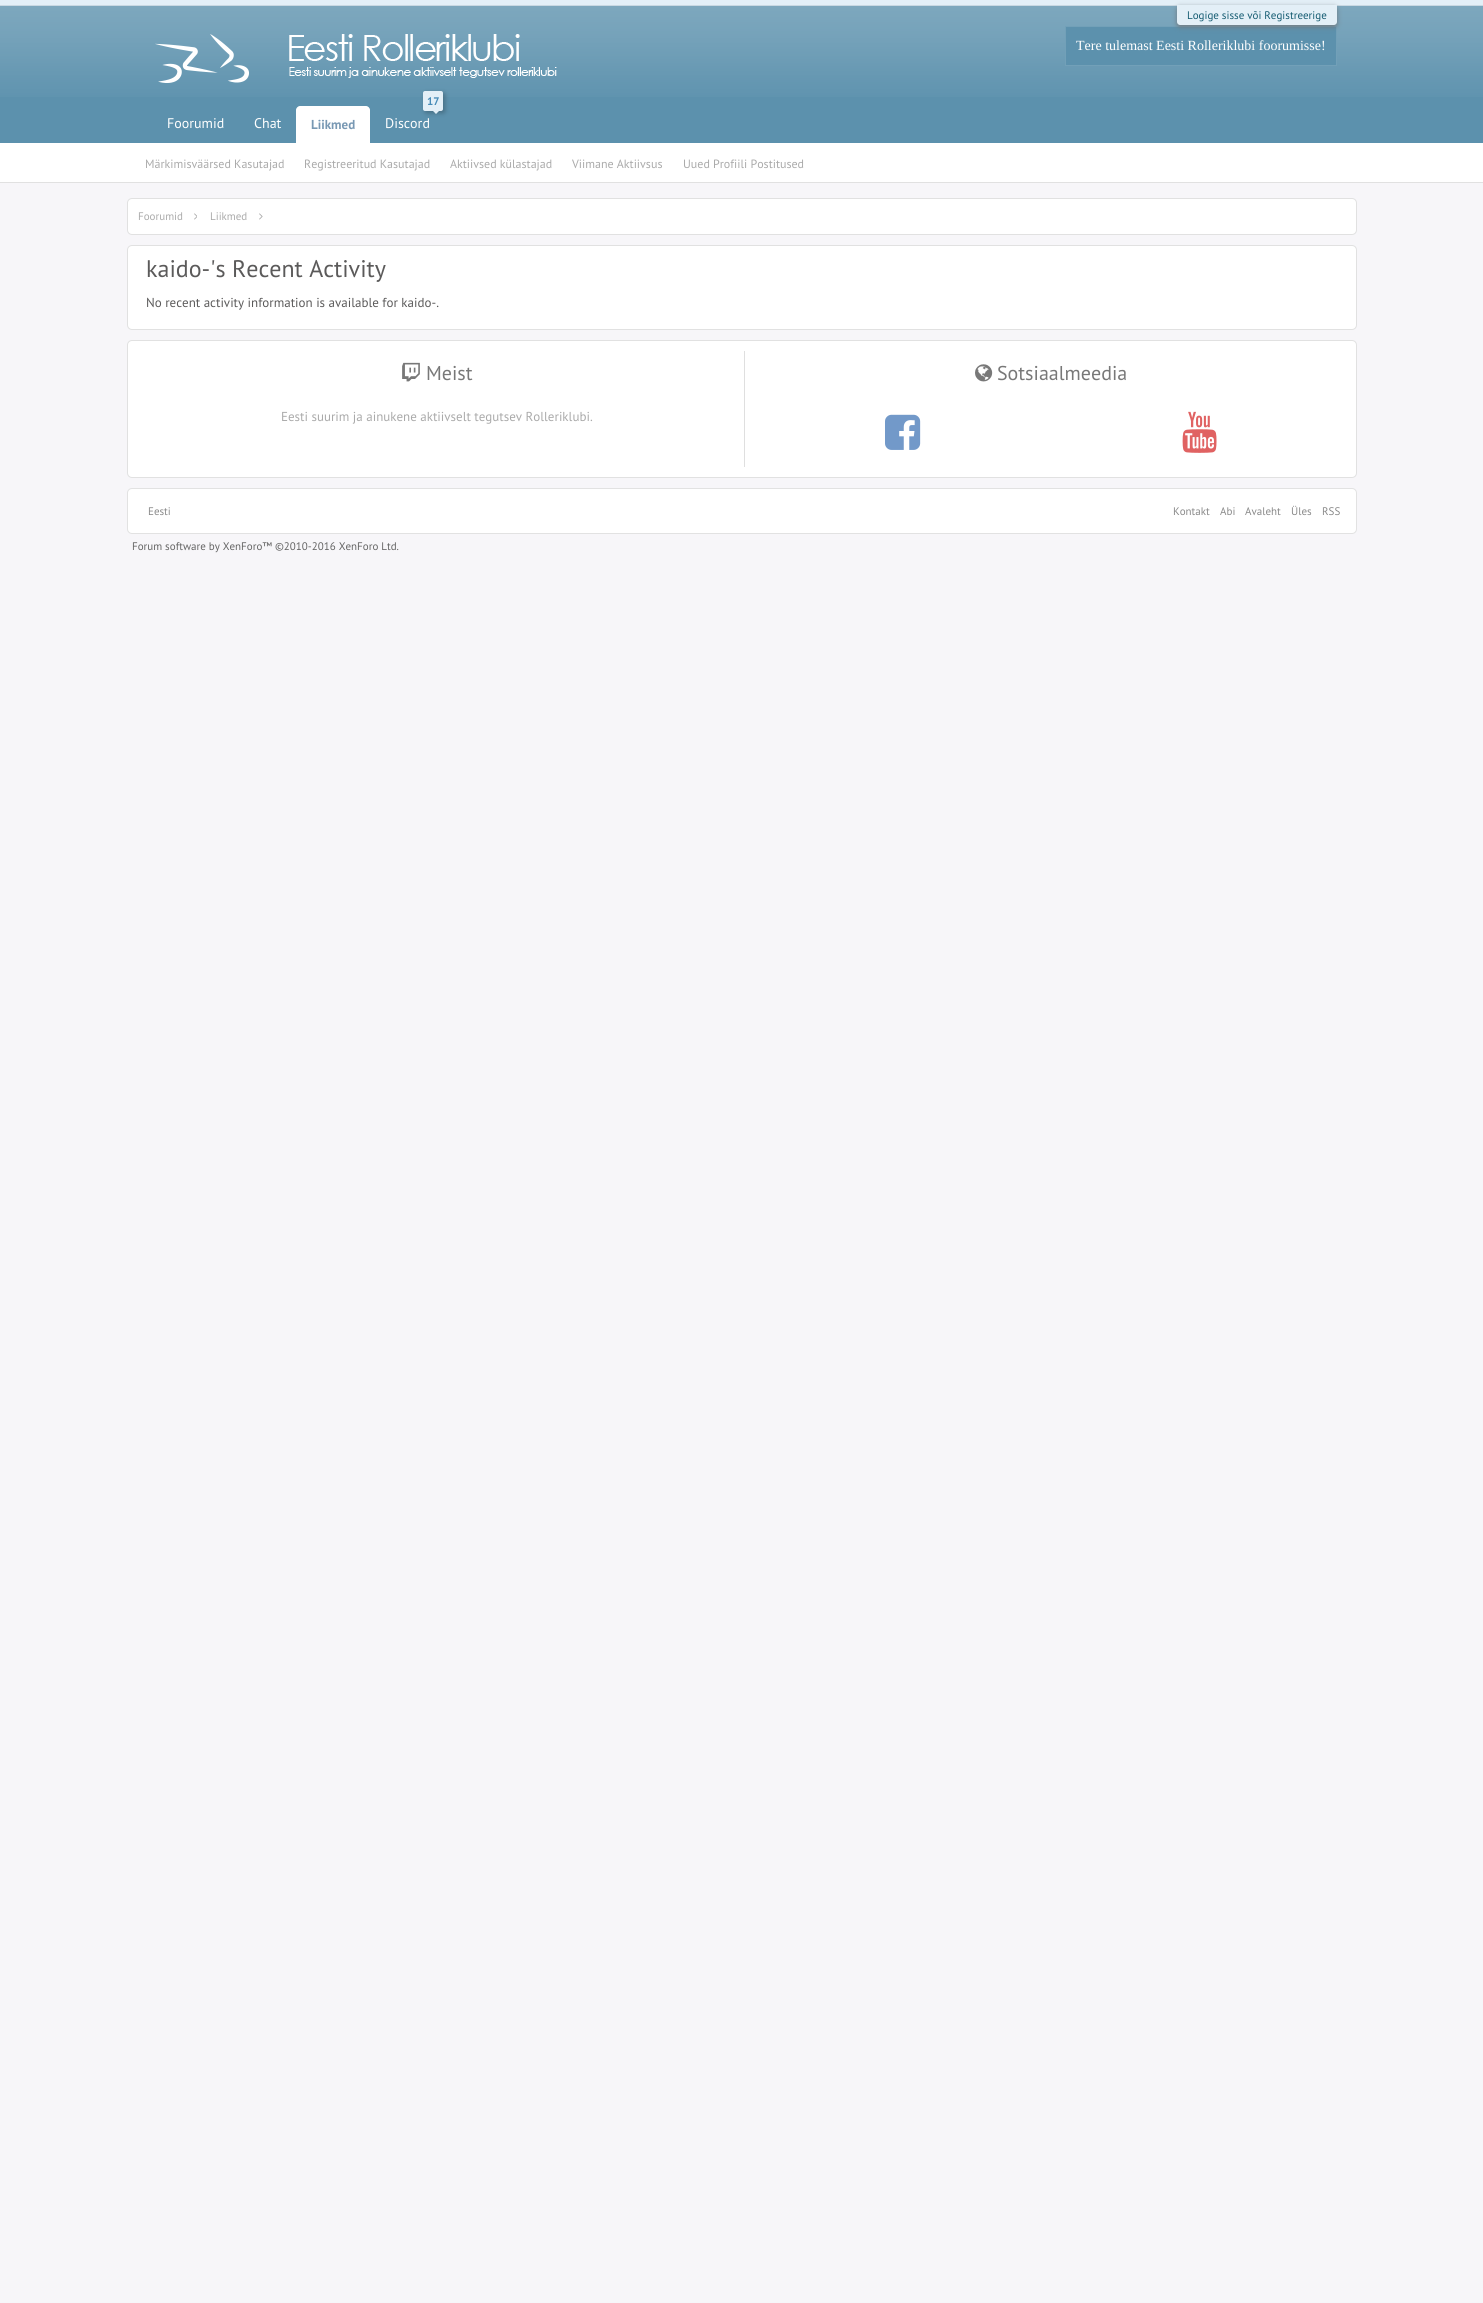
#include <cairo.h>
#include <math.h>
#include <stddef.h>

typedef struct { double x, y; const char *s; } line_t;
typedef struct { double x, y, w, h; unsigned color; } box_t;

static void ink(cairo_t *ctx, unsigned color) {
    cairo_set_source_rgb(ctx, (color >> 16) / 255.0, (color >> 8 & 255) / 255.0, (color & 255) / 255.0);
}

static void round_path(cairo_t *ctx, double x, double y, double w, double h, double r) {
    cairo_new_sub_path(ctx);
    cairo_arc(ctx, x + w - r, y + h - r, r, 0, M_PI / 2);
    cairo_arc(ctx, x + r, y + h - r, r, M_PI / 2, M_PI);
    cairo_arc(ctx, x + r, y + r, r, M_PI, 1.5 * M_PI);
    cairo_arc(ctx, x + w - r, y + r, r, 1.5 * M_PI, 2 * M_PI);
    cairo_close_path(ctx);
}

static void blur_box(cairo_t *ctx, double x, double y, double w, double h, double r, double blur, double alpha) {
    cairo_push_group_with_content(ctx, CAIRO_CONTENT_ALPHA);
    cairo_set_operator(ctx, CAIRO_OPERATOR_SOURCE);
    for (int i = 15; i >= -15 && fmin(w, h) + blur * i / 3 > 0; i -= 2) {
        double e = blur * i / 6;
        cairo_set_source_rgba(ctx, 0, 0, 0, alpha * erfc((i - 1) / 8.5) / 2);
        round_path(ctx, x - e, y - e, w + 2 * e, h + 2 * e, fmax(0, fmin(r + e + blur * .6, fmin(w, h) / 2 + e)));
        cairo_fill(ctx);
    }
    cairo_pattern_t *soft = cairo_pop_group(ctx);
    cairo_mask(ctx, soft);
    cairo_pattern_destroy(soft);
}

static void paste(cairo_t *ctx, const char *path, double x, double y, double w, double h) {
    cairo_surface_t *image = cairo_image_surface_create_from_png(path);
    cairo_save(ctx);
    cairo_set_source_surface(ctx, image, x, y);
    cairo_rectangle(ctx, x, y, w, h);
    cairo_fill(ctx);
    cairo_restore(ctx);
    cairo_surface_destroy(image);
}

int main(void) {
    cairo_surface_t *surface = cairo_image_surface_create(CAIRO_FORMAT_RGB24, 1483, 2303);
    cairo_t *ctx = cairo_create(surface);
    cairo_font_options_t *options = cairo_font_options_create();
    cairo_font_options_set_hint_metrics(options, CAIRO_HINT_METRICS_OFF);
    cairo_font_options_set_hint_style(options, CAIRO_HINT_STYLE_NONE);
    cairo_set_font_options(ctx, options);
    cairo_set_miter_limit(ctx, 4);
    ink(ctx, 0xF7F6F9);
    cairo_paint(ctx);
    {
        static const box_t items[] = {
            {0, 0, 1483, 5, 0xE3EFF7},
            {0, 5, 1483, 1, 0xC9D8E2},
            {0, 6, 1483, 137, 0x5C91AD},
        };
        for (size_t i = 0; i < sizeof items / sizeof *items; i++) {
            ink(ctx, items[i].color);
            cairo_rectangle(ctx, items[i].x, items[i].y, items[i].w, items[i].h);
            cairo_fill(ctx);
        }
    }
    paste(ctx, "media/1.png", 0, 6, 1483, 91);
    cairo_rectangle(ctx, 1065.5, 26.5, 271, 39);
    cairo_fill_preserve(ctx);
    ink(ctx, 0x72A0B8);
    cairo_set_line_width(ctx, 1);
    cairo_stroke(ctx);
    ink(ctx, 0x70787E);
    blur_box(ctx, 1177, 7, 160, 20, 3, 2.5, 1);
    ink(ctx, 0xE3EFF7);
    cairo_new_path(ctx);
    cairo_move_to(ctx, 1177, 5);
    cairo_line_to(ctx, 1337, 5);
    cairo_line_to(ctx, 1337, 22);
    cairo_curve_to(ctx, 1337, 23.5, 1335.5, 25, 1334, 25);
    cairo_line_to(ctx, 1180, 25);
    cairo_curve_to(ctx, 1178.5, 25, 1177, 23.5, 1177, 22);
    cairo_close_path(ctx);
    cairo_fill(ctx);
    cairo_select_font_face(ctx, "PT Sans", CAIRO_FONT_SLANT_NORMAL, CAIRO_FONT_WEIGHT_NORMAL);
    cairo_set_font_size(ctx, 11);
    ink(ctx, 0x145B71);
    cairo_move_to(ctx, 1187, 19);
    cairo_show_text(ctx, "Logige sisse või Registreerige");
    paste(ctx, "media/2.png", 155, 34, 402, 49);
    cairo_select_font_face(ctx, "Liberation Serif", CAIRO_FONT_SLANT_NORMAL, CAIRO_FONT_WEIGHT_NORMAL);
    cairo_set_font_size(ctx, 14);
    ink(ctx, 0xFFFFFF);
    cairo_move_to(ctx, 1076, 50);
    cairo_show_text(ctx, "Tere tulemast Eesti Rolleriklubi foorumisse!");
    cairo_select_font_face(ctx, "PT Sans", CAIRO_FONT_SLANT_NORMAL, CAIRO_FONT_WEIGHT_NORMAL);
    cairo_move_to(ctx, 167, 128);
    cairo_show_text(ctx, "Foorumid");
    cairo_move_to(ctx, 254, 128);
    cairo_show_text(ctx, "Chat");
    ink(ctx, 0x000000);
    blur_box(ctx, 425, 93, 20, 20, 2, 2.5, 0.25);
    ink(ctx, 0xE3EFF7);
    round_path(ctx, 423, 91, 20, 20, 2);
    cairo_fill(ctx);
    cairo_select_font_face(ctx, "PT Sans", CAIRO_FONT_SLANT_NORMAL, CAIRO_FONT_WEIGHT_BOLD);
    cairo_set_font_size(ctx, 11);
    ink(ctx, 0x468BB7);
    cairo_move_to(ctx, 427, 105);
    cairo_show_text(ctx, "17");
    ink(ctx, 0xE3EFF7);
    cairo_new_path(ctx);
    cairo_move_to(ctx, 433, 111);
    cairo_line_to(ctx, 439, 111);
    cairo_line_to(ctx, 436, 114);
    cairo_close_path(ctx);
    cairo_fill(ctx);
    cairo_select_font_face(ctx, "PT Sans", CAIRO_FONT_SLANT_NORMAL, CAIRO_FONT_WEIGHT_NORMAL);
    cairo_set_font_size(ctx, 14);
    ink(ctx, 0xFFFFFF);
    cairo_move_to(ctx, 385, 128);
    cairo_show_text(ctx, "Discord");
    cairo_rectangle(ctx, 0, 143, 1483, 39);
    cairo_fill(ctx);
    cairo_new_path(ctx);
    cairo_move_to(ctx, 300, 106);
    cairo_line_to(ctx, 366, 106);
    cairo_curve_to(ctx, 368, 106, 370, 108, 370, 110);
    cairo_line_to(ctx, 370, 144);
    cairo_line_to(ctx, 296, 144);
    cairo_line_to(ctx, 296, 110);
    cairo_curve_to(ctx, 296, 108, 298, 106, 300, 106);
    cairo_close_path(ctx);
    cairo_fill(ctx);
    cairo_select_font_face(ctx, "PT Sans", CAIRO_FONT_SLANT_NORMAL, CAIRO_FONT_WEIGHT_BOLD);
    cairo_set_font_size(ctx, 13);
    ink(ctx, 0x7898B3);
    cairo_move_to(ctx, 311, 129);
    cairo_show_text(ctx, "Liikmed");
    ink(ctx, 0xE1E1E1);
    cairo_rectangle(ctx, 0, 182, 1483, 1);
    cairo_fill(ctx);
    cairo_select_font_face(ctx, "PT Sans", CAIRO_FONT_SLANT_NORMAL, CAIRO_FONT_WEIGHT_NORMAL);
    cairo_set_font_size(ctx, 12);
    ink(ctx, 0xAAAAAA);
    {
        static const line_t items[] = {
            {145, 168, "Märkimisväärsed Kasutajad"},
            {304, 168, "Registreeritud Kasutajad"},
            {450, 168, "Aktiivsed külastajad"},
            {572, 168, "Viimane Aktiivsus"},
            {683, 168, "Uued Profiili Postitused"},
        };
        for (size_t i = 0; i < sizeof items / sizeof *items; i++) {
            cairo_move_to(ctx, items[i].x, items[i].y);
            cairo_show_text(ctx, items[i].s);
        }
    }
    ink(ctx, 0xFFFFFF);
    round_path(ctx, 127.5, 198.5, 1229, 36, 4.5);
    cairo_fill_preserve(ctx);
    ink(ctx, 0xE1E1E1);
    cairo_stroke(ctx);
    cairo_set_font_size(ctx, 11);
    ink(ctx, 0xAAAAAA);
    cairo_move_to(ctx, 138, 220);
    cairo_show_text(ctx, "Foorumid");
    paste(ctx, "media/3.png", 194, 213, 3, 7);
    cairo_move_to(ctx, 210, 220);
    cairo_show_text(ctx, "Liikmed");
    paste(ctx, "media/4.png", 259, 213, 4, 7);
    ink(ctx, 0xFFFFFF);
    round_path(ctx, 127.5, 245.5, 1229, 84, 4.5);
    cairo_fill_preserve(ctx);
    ink(ctx, 0xE1E1E1);
    cairo_stroke(ctx);
    cairo_set_font_size(ctx, 24);
    ink(ctx, 0x5B5A5A);
    cairo_move_to(ctx, 146, 277);
    cairo_show_text(ctx, "kaido-'s Recent Activity");
    cairo_set_font_size(ctx, 13);
    cairo_move_to(ctx, 146, 307);
    cairo_show_text(ctx, "No recent activity information is available for kaido-.");
    ink(ctx, 0xFFFFFF);
    round_path(ctx, 127.5, 340.5, 1229, 137, 4.5);
    cairo_fill_preserve(ctx);
    ink(ctx, 0xE1E1E1);
    cairo_stroke(ctx);
    paste(ctx, "media/5.png", 402, 362, 18, 20);
    cairo_set_font_size(ctx, 20);
    ink(ctx, 0x787878);
    cairo_move_to(ctx, 426, 380);
    cairo_show_text(ctx, "Meist");
    cairo_set_font_size(ctx, 13);
    ink(ctx, 0xAAAAAA);
    cairo_move_to(ctx, 281, 421);
    cairo_show_text(ctx, "Eesti suurim ja ainukene aktiivselt tegutsev Rolleriklubi.");
    ink(ctx, 0xDFDFDF);
    cairo_rectangle(ctx, 744, 351, 1, 116);
    cairo_fill(ctx);
    paste(ctx, "media/6.png", 975, 364, 18, 18);
    cairo_set_font_size(ctx, 20);
    ink(ctx, 0x787878);
    cairo_move_to(ctx, 997, 380);
    cairo_show_text(ctx, "Sotsiaalmeedia");
    paste(ctx, "media/7.png", 885, 414, 36, 36);
    paste(ctx, "media/8.png", 1182, 411, 35, 42);
    ink(ctx, 0xFFFFFF);
    round_path(ctx, 127.5, 488.5, 1229, 45, 4.5);
    cairo_fill_preserve(ctx);
    ink(ctx, 0xE2E2E2);
    cairo_stroke(ctx);
    cairo_set_font_size(ctx, 11);
    ink(ctx, 0x898989);
    {
        static const line_t items[] = {
            {148, 515, "Eesti"},
            {1173, 515, "Kontakt"},
            {1220, 515, "Abi"},
            {1245, 515, "Avaleht"},
            {1291, 515, "Üles"},
            {1322, 515, "RSS"},
        };
        for (size_t i = 0; i < sizeof items / sizeof *items; i++) {
            cairo_move_to(ctx, items[i].x, items[i].y);
            cairo_show_text(ctx, items[i].s);
        }
    }
    ink(ctx, 0x646464);
    cairo_move_to(ctx, 132, 550);
    cairo_show_text(ctx, "Forum software by XenForo™ ©2010-2016 XenForo Ltd.");
    cairo_surface_write_to_png(surface, "image.png");
    cairo_font_options_destroy(options);
    cairo_destroy(ctx);
    cairo_surface_destroy(surface);
    return 0;
}
